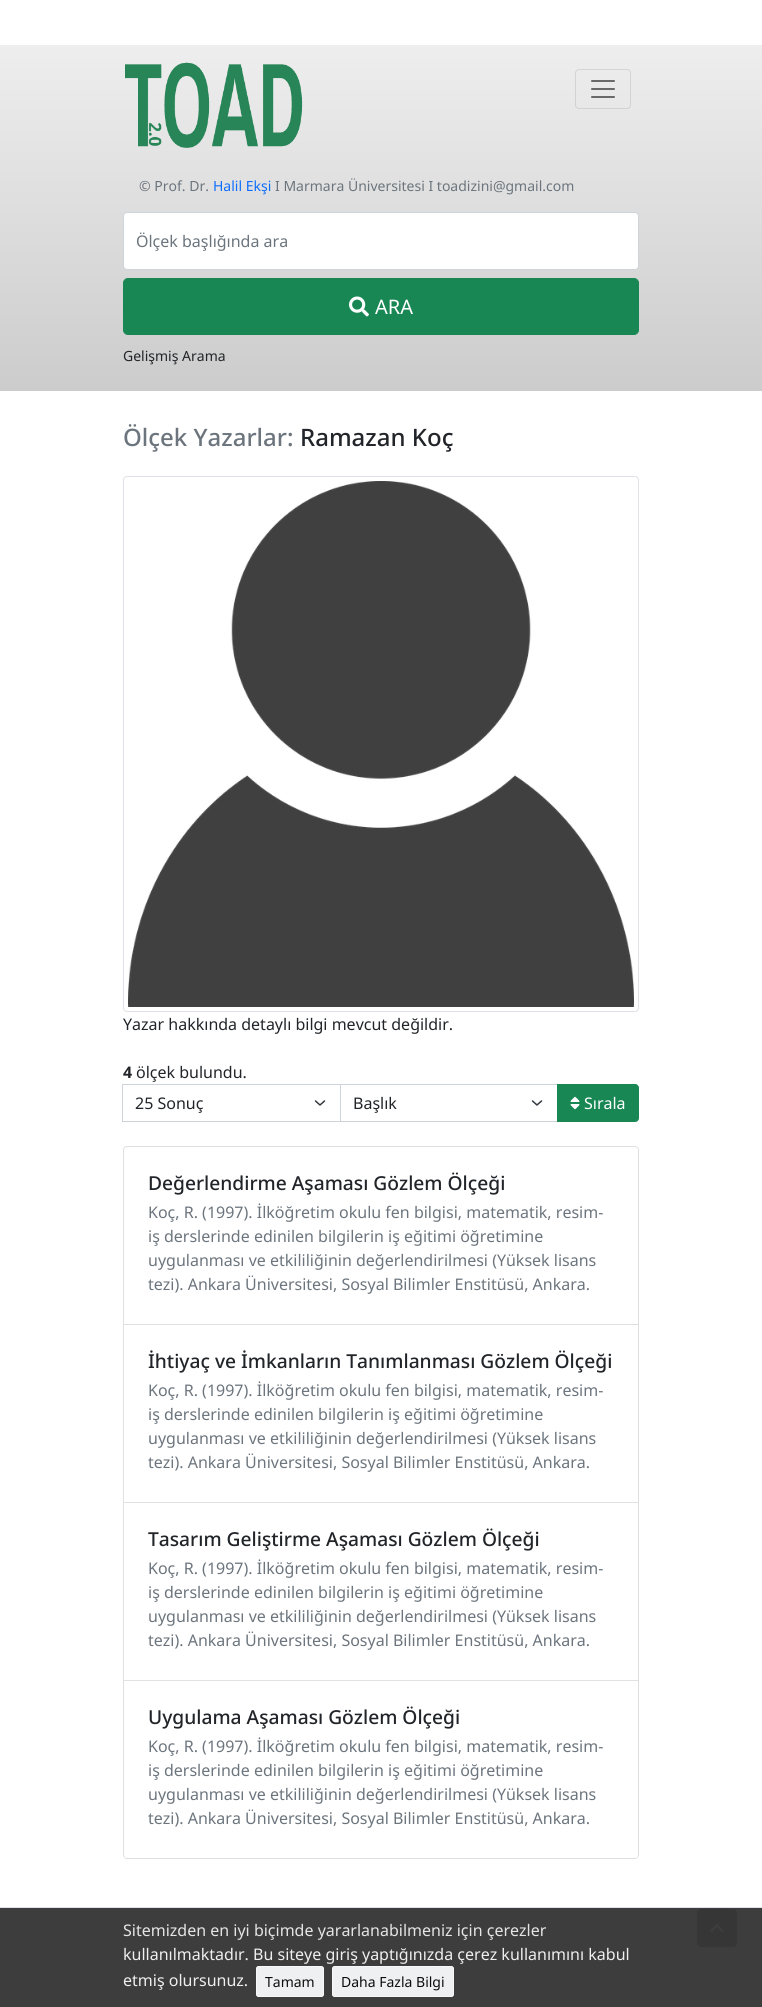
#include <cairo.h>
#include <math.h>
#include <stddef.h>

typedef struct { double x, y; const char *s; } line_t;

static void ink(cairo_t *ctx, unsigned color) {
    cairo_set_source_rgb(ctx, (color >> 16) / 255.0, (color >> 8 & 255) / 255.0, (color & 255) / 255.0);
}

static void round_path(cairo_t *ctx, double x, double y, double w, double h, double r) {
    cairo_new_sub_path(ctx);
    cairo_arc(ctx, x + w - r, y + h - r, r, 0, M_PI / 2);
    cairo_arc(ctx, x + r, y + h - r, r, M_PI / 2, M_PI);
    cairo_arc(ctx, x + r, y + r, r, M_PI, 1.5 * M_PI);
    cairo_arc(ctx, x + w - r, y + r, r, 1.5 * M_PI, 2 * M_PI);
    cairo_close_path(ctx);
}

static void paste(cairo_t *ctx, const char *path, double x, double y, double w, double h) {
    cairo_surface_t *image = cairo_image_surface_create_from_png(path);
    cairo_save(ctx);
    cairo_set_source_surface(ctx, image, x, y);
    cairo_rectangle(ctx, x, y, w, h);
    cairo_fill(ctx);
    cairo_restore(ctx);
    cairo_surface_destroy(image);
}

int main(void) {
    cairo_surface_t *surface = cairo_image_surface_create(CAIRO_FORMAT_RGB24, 762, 2007);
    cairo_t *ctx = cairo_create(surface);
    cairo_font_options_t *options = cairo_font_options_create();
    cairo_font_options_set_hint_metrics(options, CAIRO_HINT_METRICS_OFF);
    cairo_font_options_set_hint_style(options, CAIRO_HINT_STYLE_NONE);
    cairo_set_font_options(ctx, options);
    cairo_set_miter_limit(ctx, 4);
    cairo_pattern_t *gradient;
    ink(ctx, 0xFFFFFF);
    cairo_paint(ctx);
    ink(ctx, 0x3D3D3D);
    cairo_rectangle(ctx, 0, 1908, 762, 99);
    cairo_fill(ctx);
    gradient = cairo_pattern_create_linear(381, 391, 381, 45);
    cairo_pattern_add_color_stop_rgba(gradient, 0, 0.8, 0.8, 0.8, 1);
    cairo_pattern_add_color_stop_rgba(gradient, 1, 0.933, 0.933, 0.933, 1);
    cairo_set_source(ctx, gradient);
    cairo_pattern_destroy(gradient);
    cairo_rectangle(ctx, 0, 45, 762, 346);
    cairo_fill(ctx);
    paste(ctx, "media/1.png", 125, 62, 178, 86);
    round_path(ctx, 575.5, 69.5, 55, 39, 3.5);
    cairo_set_source_rgba(ctx, 0, 0, 0, 0.1);
    cairo_set_line_width(ctx, 1);
    cairo_stroke(ctx);
    paste(ctx, "media/2.png", 591, 80, 24, 18);
    cairo_select_font_face(ctx, "Noto Sans", CAIRO_FONT_SLANT_NORMAL, CAIRO_FONT_WEIGHT_NORMAL);
    cairo_set_font_size(ctx, 14);
    ink(ctx, 0x6C757D);
    cairo_move_to(ctx, 139, 191);
    cairo_show_text(ctx, "© Prof. Dr.");
    ink(ctx, 0x0D6EFD);
    cairo_move_to(ctx, 213, 191);
    cairo_show_text(ctx, "Halil Ekşi");
    ink(ctx, 0x6C757D);
    cairo_move_to(ctx, 275, 191);
    cairo_show_text(ctx, "I Marmara Üniversitesi I toadizini@gmail.com");
    ink(ctx, 0xFFFFFF);
    round_path(ctx, 123.5, 212.5, 515, 57, 3.5);
    cairo_fill_preserve(ctx);
    ink(ctx, 0xCED4DA);
    cairo_stroke(ctx);
    cairo_set_font_size(ctx, 16);
    ink(ctx, 0x6C757D);
    cairo_move_to(ctx, 136, 247);
    cairo_show_text(ctx, "Ölçek başlığında ara");
    ink(ctx, 0x198754);
    round_path(ctx, 123.5, 278.5, 515, 56, 4.5);
    cairo_fill_preserve(ctx);
    cairo_stroke(ctx);
    paste(ctx, "media/3.png", 349, 296, 20, 21);
    cairo_set_font_size(ctx, 20);
    ink(ctx, 0xFFFFFF);
    cairo_move_to(ctx, 375, 314);
    cairo_show_text(ctx, "ARA");
    cairo_set_font_size(ctx, 14);
    ink(ctx, 0x212529);
    cairo_move_to(ctx, 123, 361);
    cairo_show_text(ctx, "Gelişmiş Arama");
    cairo_select_font_face(ctx, "Noto Sans Medium", CAIRO_FONT_SLANT_NORMAL, CAIRO_FONT_WEIGHT_NORMAL);
    cairo_set_font_size(ctx, 24);
    ink(ctx, 0x6C757D);
    cairo_move_to(ctx, 123, 446);
    cairo_show_text(ctx, "Ölçek Yazarlar:");
    ink(ctx, 0x212529);
    cairo_move_to(ctx, 300, 446);
    cairo_show_text(ctx, "Ramazan Koç");
    round_path(ctx, 123.5, 476.5, 515, 535, 3.5);
    ink(ctx, 0xDEE2E6);
    cairo_stroke(ctx);
    paste(ctx, "media/4.png", 128, 481, 506, 526);
    cairo_select_font_face(ctx, "Noto Sans", CAIRO_FONT_SLANT_NORMAL, CAIRO_FONT_WEIGHT_NORMAL);
    cairo_set_font_size(ctx, 16);
    ink(ctx, 0x212529);
    cairo_move_to(ctx, 123, 1030);
    cairo_show_text(ctx, "Yazar hakkında detaylı bilgi mevcut değildir.");
    cairo_select_font_face(ctx, "Noto Sans", CAIRO_FONT_SLANT_NORMAL, CAIRO_FONT_WEIGHT_BOLD);
    cairo_move_to(ctx, 123, 1078);
    cairo_show_text(ctx, "4");
    cairo_select_font_face(ctx, "Noto Sans", CAIRO_FONT_SLANT_NORMAL, CAIRO_FONT_WEIGHT_NORMAL);
    cairo_move_to(ctx, 136, 1078);
    cairo_show_text(ctx, "ölçek bulundu.");
    cairo_new_path(ctx);
    cairo_move_to(ctx, 315.5, 1101);
    cairo_line_to(ctx, 320, 1105);
    cairo_line_to(ctx, 324.5, 1101);
    ink(ctx, 0x343A40);
    cairo_set_line_width(ctx, 1.5);
    cairo_set_line_cap(ctx, CAIRO_LINE_CAP_ROUND);
    cairo_set_line_join(ctx, CAIRO_LINE_JOIN_ROUND);
    cairo_stroke(ctx);
    cairo_rectangle(ctx, 122.5, 1084.5, 218, 37);
    ink(ctx, 0xCED4DA);
    cairo_set_line_width(ctx, 1);
    cairo_set_line_cap(ctx, CAIRO_LINE_CAP_BUTT);
    cairo_set_line_join(ctx, CAIRO_LINE_JOIN_MITER);
    cairo_stroke(ctx);
    ink(ctx, 0x212529);
    cairo_move_to(ctx, 135, 1109);
    cairo_show_text(ctx, "25 Sonuç");
    cairo_new_path(ctx);
    cairo_move_to(ctx, 532.5, 1101);
    cairo_line_to(ctx, 537, 1105);
    cairo_line_to(ctx, 541.5, 1101);
    ink(ctx, 0x343A40);
    cairo_set_line_width(ctx, 1.5);
    cairo_set_line_cap(ctx, CAIRO_LINE_CAP_ROUND);
    cairo_set_line_join(ctx, CAIRO_LINE_JOIN_ROUND);
    cairo_stroke(ctx);
    cairo_rectangle(ctx, 340.5, 1084.5, 217, 37);
    ink(ctx, 0xCED4DA);
    cairo_set_line_width(ctx, 1);
    cairo_set_line_cap(ctx, CAIRO_LINE_CAP_BUTT);
    cairo_set_line_join(ctx, CAIRO_LINE_JOIN_MITER);
    cairo_stroke(ctx);
    ink(ctx, 0x212529);
    cairo_move_to(ctx, 353, 1109);
    cairo_show_text(ctx, "Başlık");
    ink(ctx, 0x198754);
    cairo_new_path(ctx);
    cairo_move_to(ctx, 557.5, 1084.5);
    cairo_line_to(ctx, 635, 1084.5);
    cairo_curve_to(ctx, 637, 1084.5, 638.5, 1086, 638.5, 1088);
    cairo_line_to(ctx, 638.5, 1118);
    cairo_curve_to(ctx, 638.5, 1120, 637, 1121.5, 635, 1121.5);
    cairo_line_to(ctx, 557.5, 1121.5);
    cairo_close_path(ctx);
    cairo_fill_preserve(ctx);
    cairo_stroke(ctx);
    paste(ctx, "media/5.png", 570, 1096, 10, 14);
    ink(ctx, 0xFFFFFF);
    cairo_move_to(ctx, 584, 1109);
    cairo_show_text(ctx, "Sırala");
    cairo_new_path(ctx);
    cairo_move_to(ctx, 127, 1146.5);
    cairo_line_to(ctx, 635, 1146.5);
    cairo_curve_to(ctx, 637, 1146.5, 638.5, 1148, 638.5, 1150);
    cairo_line_to(ctx, 638.5, 1324.5);
    cairo_line_to(ctx, 123.5, 1324.5);
    cairo_line_to(ctx, 123.5, 1150);
    cairo_curve_to(ctx, 123.5, 1148, 125, 1146.5, 127, 1146.5);
    cairo_close_path(ctx);
    ink(ctx, 0xDFDFDF);
    cairo_stroke(ctx);
    cairo_select_font_face(ctx, "Noto Sans Medium", CAIRO_FONT_SLANT_NORMAL, CAIRO_FONT_WEIGHT_NORMAL);
    cairo_set_font_size(ctx, 19.2);
    ink(ctx, 0x212529);
    cairo_move_to(ctx, 148, 1190);
    cairo_show_text(ctx, "Değerlendirme Aşaması Gözlem Ölçeği");
    cairo_select_font_face(ctx, "Noto Sans", CAIRO_FONT_SLANT_NORMAL, CAIRO_FONT_WEIGHT_NORMAL);
    cairo_set_font_size(ctx, 16);
    ink(ctx, 0x6C757D);
    {
        static const line_t items[] = {
            {148, 1218, "Koç, R. (1997). İlköğretim okulu fen bilgisi, matematik, resim-"},
            {148, 1242, "iş derslerinde edinilen bilgilerin iş eğitimi öğretimine"},
            {148, 1266, "uygulanması ve etkililiğinin değerlendirilmesi (Yüksek lisans"},
            {148, 1290, "tezi). Ankara Üniversitesi, Sosyal Bilimler Enstitüsü, Ankara."},
        };
        for (size_t i = 0; i < sizeof items / sizeof *items; i++) {
            cairo_move_to(ctx, items[i].x, items[i].y);
            cairo_show_text(ctx, items[i].s);
        }
    }
    ink(ctx, 0xDFDFDF);
    cairo_new_path(ctx);
    cairo_move_to(ctx, 639, 1325);
    cairo_line_to(ctx, 639, 1503);
    cairo_line_to(ctx, 638, 1502);
    cairo_line_to(ctx, 638, 1325);
    cairo_close_path(ctx);
    cairo_fill(ctx);
    cairo_set_source_rgba(ctx, 0, 0, 0, 0.12);
    cairo_new_path(ctx);
    cairo_move_to(ctx, 639, 1503);
    cairo_line_to(ctx, 123, 1503);
    cairo_line_to(ctx, 124, 1502);
    cairo_line_to(ctx, 638, 1502);
    cairo_close_path(ctx);
    cairo_fill(ctx);
    cairo_new_path(ctx);
    cairo_move_to(ctx, 123, 1503);
    cairo_line_to(ctx, 123, 1325);
    cairo_line_to(ctx, 124, 1325);
    cairo_line_to(ctx, 124, 1502);
    cairo_close_path(ctx);
    cairo_fill(ctx);
    cairo_select_font_face(ctx, "Noto Sans Medium", CAIRO_FONT_SLANT_NORMAL, CAIRO_FONT_WEIGHT_NORMAL);
    cairo_set_font_size(ctx, 19.2);
    ink(ctx, 0x212529);
    cairo_move_to(ctx, 148, 1368);
    cairo_show_text(ctx, "İhtiyaç ve İmkanların Tanımlanması Gözlem Ölçeği");
    cairo_select_font_face(ctx, "Noto Sans", CAIRO_FONT_SLANT_NORMAL, CAIRO_FONT_WEIGHT_NORMAL);
    cairo_set_font_size(ctx, 16);
    ink(ctx, 0x6C757D);
    {
        static const line_t items[] = {
            {148, 1396, "Koç, R. (1997). İlköğretim okulu fen bilgisi, matematik, resim-"},
            {148, 1420, "iş derslerinde edinilen bilgilerin iş eğitimi öğretimine"},
            {148, 1444, "uygulanması ve etkililiğinin değerlendirilmesi (Yüksek lisans"},
            {148, 1468, "tezi). Ankara Üniversitesi, Sosyal Bilimler Enstitüsü, Ankara."},
        };
        for (size_t i = 0; i < sizeof items / sizeof *items; i++) {
            cairo_move_to(ctx, items[i].x, items[i].y);
            cairo_show_text(ctx, items[i].s);
        }
    }
    ink(ctx, 0xDFDFDF);
    cairo_new_path(ctx);
    cairo_move_to(ctx, 639, 1503);
    cairo_line_to(ctx, 639, 1681);
    cairo_line_to(ctx, 638, 1680);
    cairo_line_to(ctx, 638, 1503);
    cairo_close_path(ctx);
    cairo_fill(ctx);
    cairo_set_source_rgba(ctx, 0, 0, 0, 0.12);
    cairo_new_path(ctx);
    cairo_move_to(ctx, 639, 1681);
    cairo_line_to(ctx, 123, 1681);
    cairo_line_to(ctx, 124, 1680);
    cairo_line_to(ctx, 638, 1680);
    cairo_close_path(ctx);
    cairo_fill(ctx);
    cairo_new_path(ctx);
    cairo_move_to(ctx, 123, 1681);
    cairo_line_to(ctx, 123, 1503);
    cairo_line_to(ctx, 124, 1503);
    cairo_line_to(ctx, 124, 1680);
    cairo_close_path(ctx);
    cairo_fill(ctx);
    cairo_select_font_face(ctx, "Noto Sans Medium", CAIRO_FONT_SLANT_NORMAL, CAIRO_FONT_WEIGHT_NORMAL);
    cairo_set_font_size(ctx, 19.2);
    ink(ctx, 0x212529);
    cairo_move_to(ctx, 148, 1546);
    cairo_show_text(ctx, "Tasarım Geliştirme Aşaması Gözlem Ölçeği");
    cairo_select_font_face(ctx, "Noto Sans", CAIRO_FONT_SLANT_NORMAL, CAIRO_FONT_WEIGHT_NORMAL);
    cairo_set_font_size(ctx, 16);
    ink(ctx, 0x6C757D);
    {
        static const line_t items[] = {
            {148, 1574, "Koç, R. (1997). İlköğretim okulu fen bilgisi, matematik, resim-"},
            {148, 1598, "iş derslerinde edinilen bilgilerin iş eğitimi öğretimine"},
            {148, 1622, "uygulanması ve etkililiğinin değerlendirilmesi (Yüksek lisans"},
            {148, 1646, "tezi). Ankara Üniversitesi, Sosyal Bilimler Enstitüsü, Ankara."},
        };
        for (size_t i = 0; i < sizeof items / sizeof *items; i++) {
            cairo_move_to(ctx, items[i].x, items[i].y);
            cairo_show_text(ctx, items[i].s);
        }
    }
    ink(ctx, 0xDFDFDF);
    cairo_set_fill_rule(ctx, CAIRO_FILL_RULE_EVEN_ODD);
    cairo_new_path(ctx);
    cairo_move_to(ctx, 123, 1681);
    cairo_line_to(ctx, 639, 1681);
    cairo_line_to(ctx, 639, 1855);
    cairo_curve_to(ctx, 639, 1857, 637, 1859, 635, 1859);
    cairo_line_to(ctx, 127, 1859);
    cairo_curve_to(ctx, 125, 1859, 123, 1857, 123, 1855);
    cairo_close_path(ctx);
    cairo_move_to(ctx, 124, 1681);
    cairo_line_to(ctx, 638, 1681);
    cairo_line_to(ctx, 638, 1855);
    cairo_curve_to(ctx, 638, 1857, 637, 1858, 635, 1858);
    cairo_line_to(ctx, 127, 1858);
    cairo_curve_to(ctx, 125, 1858, 124, 1857, 124, 1855);
    cairo_close_path(ctx);
    cairo_fill(ctx);
    cairo_select_font_face(ctx, "Noto Sans Medium", CAIRO_FONT_SLANT_NORMAL, CAIRO_FONT_WEIGHT_NORMAL);
    cairo_set_font_size(ctx, 19.2);
    ink(ctx, 0x212529);
    cairo_move_to(ctx, 148, 1724);
    cairo_show_text(ctx, "Uygulama Aşaması Gözlem Ölçeği");
    cairo_select_font_face(ctx, "Noto Sans", CAIRO_FONT_SLANT_NORMAL, CAIRO_FONT_WEIGHT_NORMAL);
    cairo_set_font_size(ctx, 16);
    ink(ctx, 0x6C757D);
    {
        static const line_t items[] = {
            {148, 1752, "Koç, R. (1997). İlköğretim okulu fen bilgisi, matematik, resim-"},
            {148, 1776, "iş derslerinde edinilen bilgilerin iş eğitimi öğretimine"},
            {148, 1800, "uygulanması ve etkililiğinin değerlendirilmesi (Yüksek lisans"},
            {148, 1824, "tezi). Ankara Üniversitesi, Sosyal Bilimler Enstitüsü, Ankara."},
        };
        for (size_t i = 0; i < sizeof items / sizeof *items; i++) {
            cairo_move_to(ctx, items[i].x, items[i].y);
            cairo_show_text(ctx, items[i].s);
        }
    }
    ink(ctx, 0xDEE2E6);
    cairo_rectangle(ctx, 0, 1907, 762, 1);
    cairo_fill(ctx);
    ink(ctx, 0xE5E5E5);
    cairo_move_to(ctx, 123, 1936);
    cairo_show_text(ctx, "Sitemizden en iyi biçimde yararlanabilmeniz için çerezler");
    ink(ctx, 0xEFEFEF);
    cairo_move_to(ctx, 123, 1960);
    cairo_show_text(ctx, "kullanılmaktadır. Bu siteye giriş yaptığınızda çerez kullanımını kabul");
    cairo_move_to(ctx, 123, 1986);
    cairo_show_text(ctx, "etmiş olursunuz.");
    cairo_set_source_rgba(ctx, 0.973, 0.976, 0.98, 0.95);
    round_path(ctx, 256, 1966, 68, 31, 3);
    cairo_fill(ctx);
    round_path(ctx, 256.5, 1966.5, 67, 30, 2.5);
    cairo_stroke(ctx);
    cairo_set_font_size(ctx, 14);
    ink(ctx, 0x0D0D0D);
    cairo_move_to(ctx, 265, 1987);
    cairo_show_text(ctx, "Tamam");
    cairo_set_source_rgba(ctx, 0.973, 0.976, 0.98, 0.95);
    round_path(ctx, 332, 1966, 122, 31, 3);
    cairo_fill(ctx);
    round_path(ctx, 332.5, 1966.5, 121, 30, 2.5);
    cairo_stroke(ctx);
    ink(ctx, 0x0D0D0D);
    cairo_move_to(ctx, 341, 1987);
    cairo_show_text(ctx, "Daha Fazla Bilgi");
    ink(ctx, 0x363637);
    round_path(ctx, 697, 1909, 40, 38, 4);
    cairo_fill(ctx);
    paste(ctx, "media/6.png", 710, 1923, 14, 10);
    cairo_surface_write_to_png(surface, "image.png");
    cairo_font_options_destroy(options);
    cairo_destroy(ctx);
    cairo_surface_destroy(surface);
    return 0;
}
